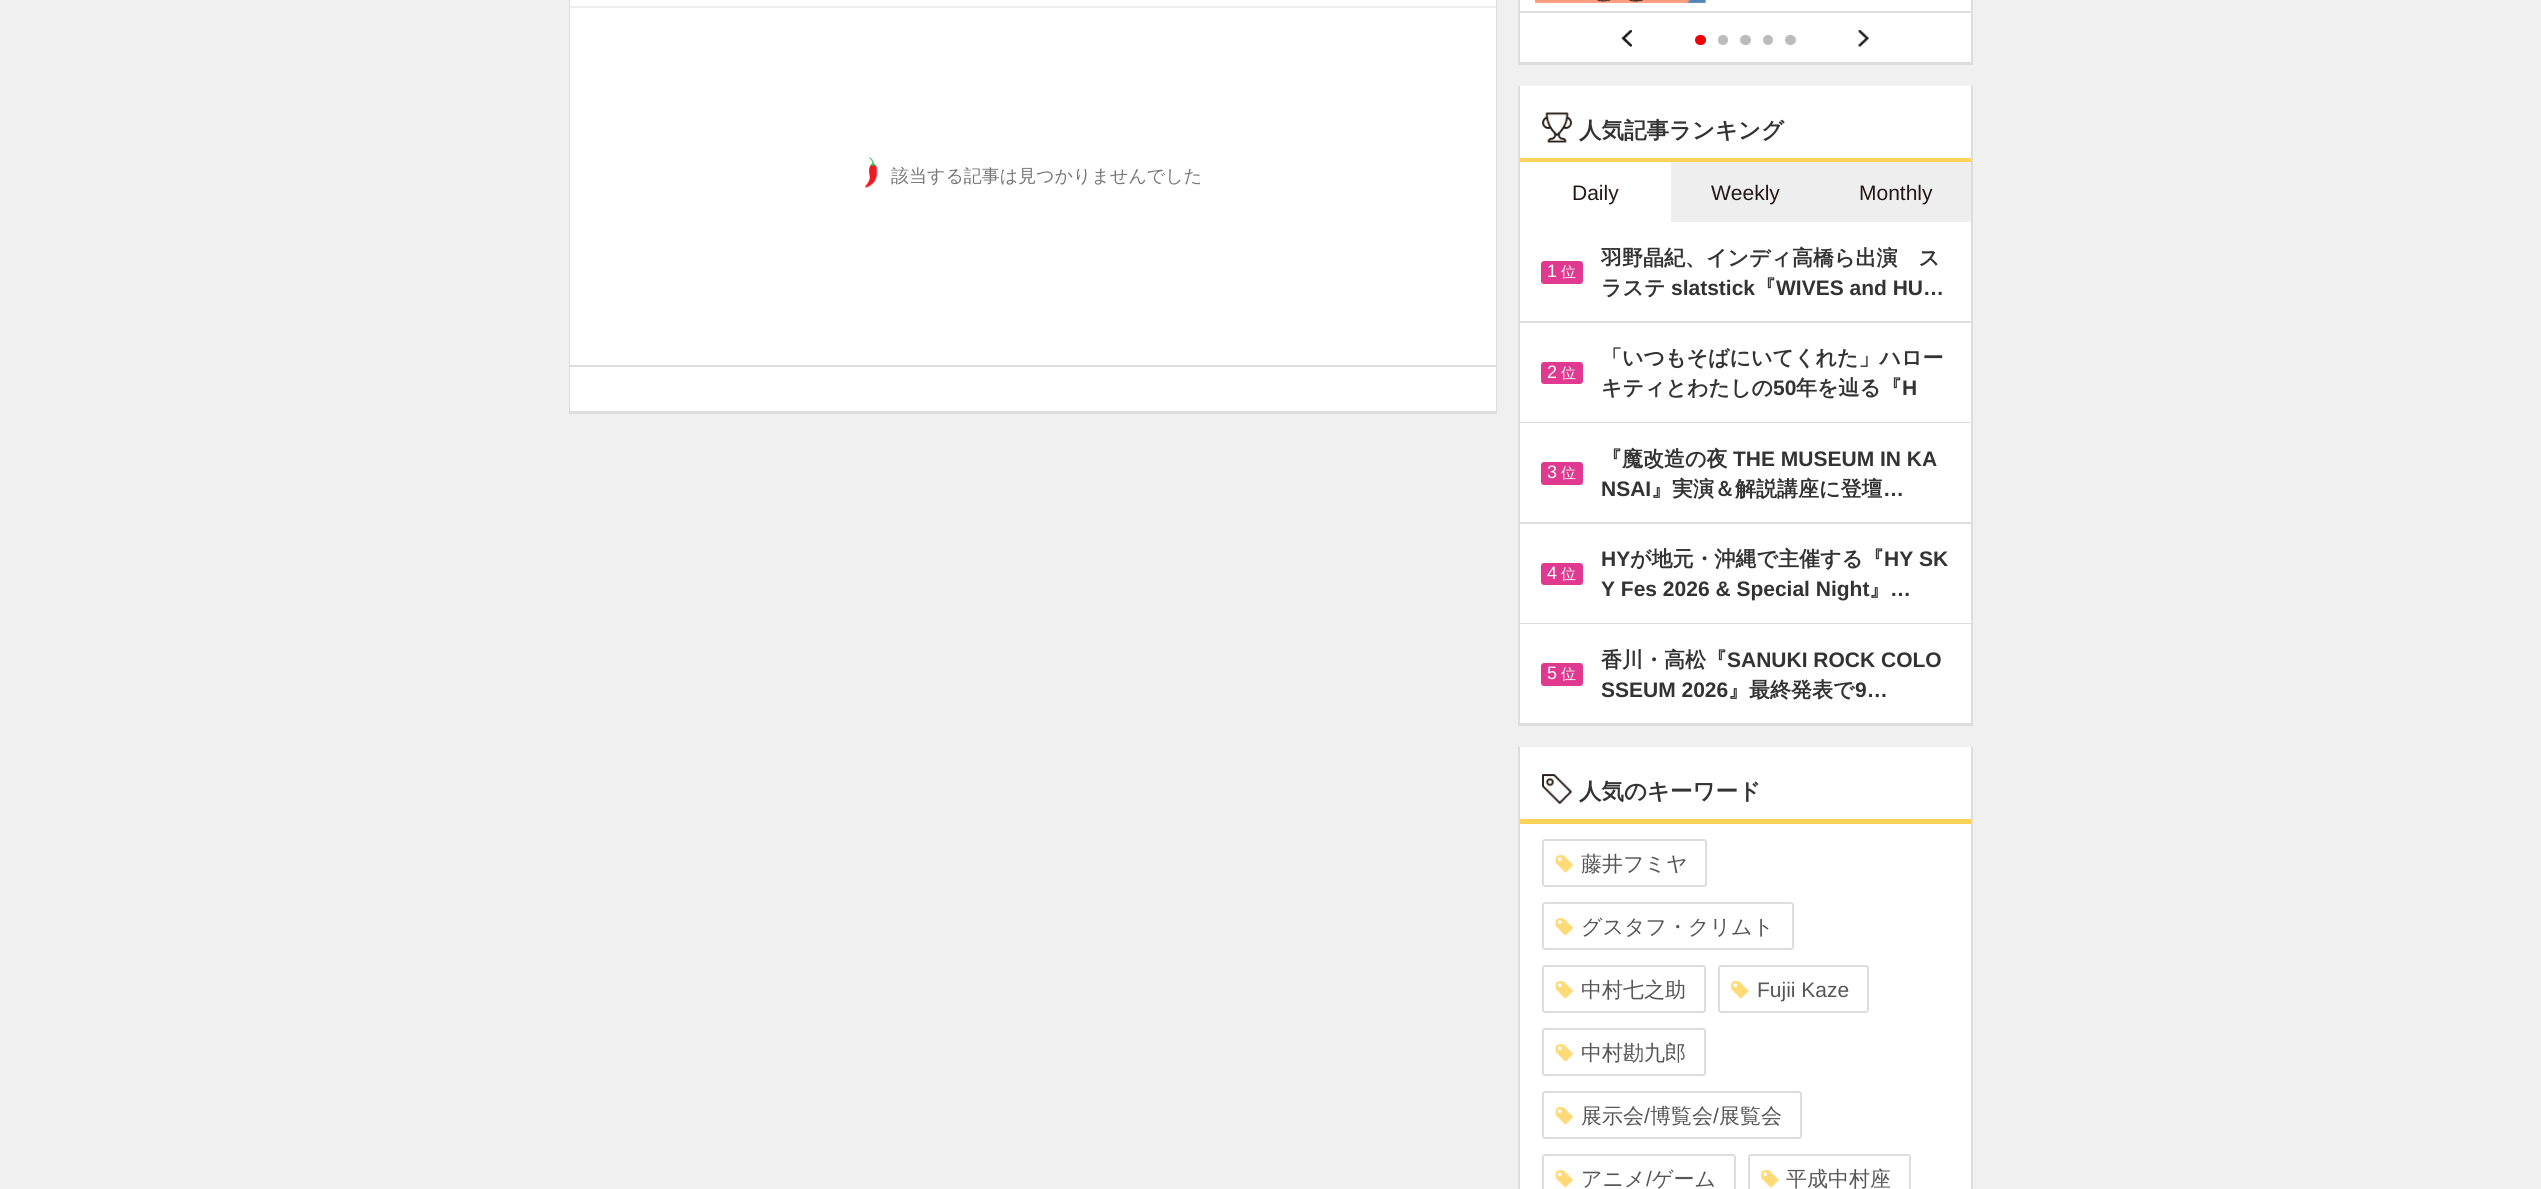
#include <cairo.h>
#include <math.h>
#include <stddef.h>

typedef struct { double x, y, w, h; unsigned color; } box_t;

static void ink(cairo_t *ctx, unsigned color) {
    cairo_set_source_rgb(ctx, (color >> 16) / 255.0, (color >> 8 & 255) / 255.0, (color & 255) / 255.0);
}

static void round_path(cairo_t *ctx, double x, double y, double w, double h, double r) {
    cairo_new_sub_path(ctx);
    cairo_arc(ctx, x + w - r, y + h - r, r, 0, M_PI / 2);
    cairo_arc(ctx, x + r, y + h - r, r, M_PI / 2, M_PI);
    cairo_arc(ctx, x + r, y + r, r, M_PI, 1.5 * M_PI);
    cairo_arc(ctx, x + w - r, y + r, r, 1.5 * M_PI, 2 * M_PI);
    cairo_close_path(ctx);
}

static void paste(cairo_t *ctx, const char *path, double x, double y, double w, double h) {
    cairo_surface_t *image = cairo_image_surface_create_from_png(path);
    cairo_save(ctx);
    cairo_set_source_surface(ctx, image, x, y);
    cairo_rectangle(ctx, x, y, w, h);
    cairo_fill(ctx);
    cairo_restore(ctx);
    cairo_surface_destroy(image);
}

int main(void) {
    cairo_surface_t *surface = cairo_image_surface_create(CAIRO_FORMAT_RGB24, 2541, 1189);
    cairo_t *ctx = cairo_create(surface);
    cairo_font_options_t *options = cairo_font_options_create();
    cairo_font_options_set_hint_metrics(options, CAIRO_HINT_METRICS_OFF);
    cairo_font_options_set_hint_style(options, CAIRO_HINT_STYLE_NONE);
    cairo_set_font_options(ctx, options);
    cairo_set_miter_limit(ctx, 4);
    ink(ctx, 0xF0F0F0);
    cairo_paint(ctx);
    ink(ctx, 0xDDDDDD);
    cairo_new_path(ctx);
    cairo_move_to(ctx, 569, -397);
    cairo_line_to(ctx, 569, 414);
    cairo_line_to(ctx, 1497, 414);
    cairo_line_to(ctx, 1497, -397);
    cairo_line_to(ctx, 1496, -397);
    cairo_line_to(ctx, 1496, 411);
    cairo_line_to(ctx, 570, 411);
    cairo_line_to(ctx, 570, -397);
    cairo_close_path(ctx);
    cairo_fill(ctx);
    {
        static const box_t items[] = {
            {570, 0, 926, 411, 0xFFFFFF},
            {570, 6, 926, 2, 0xEEEEEE},
            {570, 365, 926, 2, 0xDDDDDD},
        };
        for (size_t i = 0; i < sizeof items / sizeof *items; i++) {
            ink(ctx, items[i].color);
            cairo_rectangle(ctx, items[i].x, items[i].y, items[i].w, items[i].h);
            cairo_fill(ctx);
        }
    }
    paste(ctx, "media/1.png", 864, 157, 14, 31);
    cairo_select_font_face(ctx, "WenQuanYi Zen Hei Medium", CAIRO_FONT_SLANT_NORMAL, CAIRO_FONT_WEIGHT_NORMAL);
    cairo_set_font_size(ctx, 18);
    ink(ctx, 0x767676);
    cairo_move_to(ctx, 891, 182);
    cairo_show_text(ctx, "該当する記事は見つかりませんでした");
    ink(ctx, 0xDDDDDD);
    cairo_new_path(ctx);
    cairo_move_to(ctx, 1518, -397);
    cairo_line_to(ctx, 1518, 65);
    cairo_line_to(ctx, 1973, 65);
    cairo_line_to(ctx, 1973, -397);
    cairo_line_to(ctx, 1971, -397);
    cairo_line_to(ctx, 1971, 62);
    cairo_line_to(ctx, 1520, 62);
    cairo_line_to(ctx, 1520, -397);
    cairo_close_path(ctx);
    cairo_fill(ctx);
    {
        static const box_t items[] = {
            {1520, 0, 451, 62, 0xFFFFFF},
            {1520, 11, 451, 2, 0xDDDDDD},
            {1535, 0, 171, 3, 0xF6F6F6},
        };
        for (size_t i = 0; i < sizeof items / sizeof *items; i++) {
            ink(ctx, items[i].color);
            cairo_rectangle(ctx, items[i].x, items[i].y, items[i].w, items[i].h);
            cairo_fill(ctx);
        }
    }
    paste(ctx, "media/2.png", 1535, 0, 171, 4);
    paste(ctx, "media/3.png", 1621, 30, 11, 17);
    ink(ctx, 0xEF0006);
    round_path(ctx, 1695, 35, 11, 10, 5);
    cairo_fill(ctx);
    ink(ctx, 0xBCBCBC);
    cairo_arc(ctx, 1723, 40, 5, 0, 2 * M_PI);
    cairo_fill(ctx);
    round_path(ctx, 1740, 35, 11, 10, 5);
    cairo_fill(ctx);
    cairo_arc(ctx, 1768, 40, 5, 0, 2 * M_PI);
    cairo_fill(ctx);
    round_path(ctx, 1785, 35, 11, 10, 5);
    cairo_fill(ctx);
    paste(ctx, "media/4.png", 1858, 30, 11, 17);
    ink(ctx, 0xDDDDDD);
    cairo_new_path(ctx);
    cairo_move_to(ctx, 1518, 86);
    cairo_line_to(ctx, 1518, 726);
    cairo_line_to(ctx, 1973, 726);
    cairo_line_to(ctx, 1973, 86);
    cairo_line_to(ctx, 1971, 86);
    cairo_line_to(ctx, 1971, 723);
    cairo_line_to(ctx, 1520, 723);
    cairo_line_to(ctx, 1520, 86);
    cairo_close_path(ctx);
    cairo_fill(ctx);
    ink(ctx, 0xFFFFFF);
    cairo_rectangle(ctx, 1520, 86, 451, 537);
    cairo_fill(ctx);
    ink(ctx, 0xFED257);
    cairo_rectangle(ctx, 1520, 158, 451, 4);
    cairo_fill(ctx);
    paste(ctx, "media/5.png", 1542, 112, 30, 31);
    cairo_select_font_face(ctx, "WenQuanYi Zen Hei", CAIRO_FONT_SLANT_NORMAL, CAIRO_FONT_WEIGHT_BOLD);
    cairo_set_font_size(ctx, 22.5);
    ink(ctx, 0x333333);
    cairo_move_to(ctx, 1579, 138);
    cairo_show_text(ctx, "人気記事ランキング");
    cairo_select_font_face(ctx, "Liberation Sans", CAIRO_FONT_SLANT_NORMAL, CAIRO_FONT_WEIGHT_NORMAL);
    cairo_set_font_size(ctx, 21);
    ink(ctx, 0x231815);
    cairo_move_to(ctx, 1572, 200);
    cairo_show_text(ctx, "Daily");
    ink(ctx, 0xEEEEEE);
    cairo_rectangle(ctx, 1671, 162, 300, 60);
    cairo_fill(ctx);
    ink(ctx, 0x231815);
    cairo_move_to(ctx, 1711, 200);
    cairo_show_text(ctx, "Weekly");
    cairo_move_to(ctx, 1859, 200);
    cairo_show_text(ctx, "Monthly");
    ink(ctx, 0xDDDDDD);
    cairo_rectangle(ctx, 1520, 321, 451, 2);
    cairo_fill(ctx);
    ink(ctx, 0xE03A90);
    round_path(ctx, 1541, 261, 42, 23, 3);
    cairo_fill(ctx);
    cairo_set_font_size(ctx, 18);
    ink(ctx, 0xFFFFFF);
    cairo_move_to(ctx, 1547, 277);
    cairo_show_text(ctx, "1");
    cairo_select_font_face(ctx, "WenQuanYi Zen Hei Medium", CAIRO_FONT_SLANT_NORMAL, CAIRO_FONT_WEIGHT_NORMAL);
    cairo_set_font_size(ctx, 15);
    cairo_move_to(ctx, 1561, 277);
    cairo_show_text(ctx, "位");
    cairo_select_font_face(ctx, "WenQuanYi Zen Hei", CAIRO_FONT_SLANT_NORMAL, CAIRO_FONT_WEIGHT_BOLD);
    cairo_set_font_size(ctx, 21);
    ink(ctx, 0x333333);
    cairo_move_to(ctx, 1601, 265);
    cairo_show_text(ctx, "羽野晶紀、インディ高橋ら出演　ス");
    cairo_move_to(ctx, 1601, 295);
    cairo_show_text(ctx, "ラステ");
    cairo_select_font_face(ctx, "Liberation Sans", CAIRO_FONT_SLANT_NORMAL, CAIRO_FONT_WEIGHT_BOLD);
    cairo_move_to(ctx, 1671, 295);
    cairo_show_text(ctx, "slatstick");
    cairo_select_font_face(ctx, "WenQuanYi Zen Hei", CAIRO_FONT_SLANT_NORMAL, CAIRO_FONT_WEIGHT_BOLD);
    cairo_move_to(ctx, 1755, 295);
    cairo_show_text(ctx, "『");
    cairo_select_font_face(ctx, "Liberation Sans", CAIRO_FONT_SLANT_NORMAL, CAIRO_FONT_WEIGHT_BOLD);
    cairo_move_to(ctx, 1776, 295);
    cairo_show_text(ctx, "WIVES and HU…");
    ink(ctx, 0xDDDDDD);
    cairo_rectangle(ctx, 1520, 422, 451, 1);
    cairo_fill(ctx);
    ink(ctx, 0xE03A90);
    round_path(ctx, 1541, 362, 42, 22, 3);
    cairo_fill(ctx);
    cairo_select_font_face(ctx, "Liberation Sans", CAIRO_FONT_SLANT_NORMAL, CAIRO_FONT_WEIGHT_NORMAL);
    cairo_set_font_size(ctx, 18);
    ink(ctx, 0xFFFFFF);
    cairo_move_to(ctx, 1547, 378);
    cairo_show_text(ctx, "2");
    cairo_select_font_face(ctx, "WenQuanYi Zen Hei Medium", CAIRO_FONT_SLANT_NORMAL, CAIRO_FONT_WEIGHT_NORMAL);
    cairo_set_font_size(ctx, 15);
    cairo_move_to(ctx, 1561, 378);
    cairo_show_text(ctx, "位");
    cairo_select_font_face(ctx, "WenQuanYi Zen Hei", CAIRO_FONT_SLANT_NORMAL, CAIRO_FONT_WEIGHT_BOLD);
    cairo_set_font_size(ctx, 21);
    ink(ctx, 0x333333);
    cairo_move_to(ctx, 1601, 365);
    cairo_show_text(ctx, "「いつもそばにいてくれた」ハロー");
    cairo_move_to(ctx, 1601, 395);
    cairo_show_text(ctx, "キティとわたしの");
    cairo_select_font_face(ctx, "Liberation Sans", CAIRO_FONT_SLANT_NORMAL, CAIRO_FONT_WEIGHT_BOLD);
    cairo_move_to(ctx, 1773, 395);
    cairo_show_text(ctx, "50");
    cairo_select_font_face(ctx, "WenQuanYi Zen Hei", CAIRO_FONT_SLANT_NORMAL, CAIRO_FONT_WEIGHT_BOLD);
    cairo_move_to(ctx, 1796, 395);
    cairo_show_text(ctx, "年を辿る『");
    cairo_select_font_face(ctx, "Liberation Sans", CAIRO_FONT_SLANT_NORMAL, CAIRO_FONT_WEIGHT_BOLD);
    cairo_move_to(ctx, 1902, 395);
    cairo_show_text(ctx, "H");
    ink(ctx, 0xDDDDDD);
    cairo_rectangle(ctx, 1520, 522, 451, 2);
    cairo_fill(ctx);
    ink(ctx, 0xE03A90);
    round_path(ctx, 1541, 462, 42, 23, 3);
    cairo_fill(ctx);
    cairo_select_font_face(ctx, "Liberation Sans", CAIRO_FONT_SLANT_NORMAL, CAIRO_FONT_WEIGHT_NORMAL);
    cairo_set_font_size(ctx, 18);
    ink(ctx, 0xFFFFFF);
    cairo_move_to(ctx, 1547, 478);
    cairo_show_text(ctx, "3");
    cairo_select_font_face(ctx, "WenQuanYi Zen Hei Medium", CAIRO_FONT_SLANT_NORMAL, CAIRO_FONT_WEIGHT_NORMAL);
    cairo_set_font_size(ctx, 15);
    cairo_move_to(ctx, 1561, 478);
    cairo_show_text(ctx, "位");
    cairo_select_font_face(ctx, "WenQuanYi Zen Hei", CAIRO_FONT_SLANT_NORMAL, CAIRO_FONT_WEIGHT_BOLD);
    cairo_set_font_size(ctx, 21);
    ink(ctx, 0x333333);
    cairo_move_to(ctx, 1601, 466);
    cairo_show_text(ctx, "『魔改造の夜");
    cairo_select_font_face(ctx, "Liberation Sans", CAIRO_FONT_SLANT_NORMAL, CAIRO_FONT_WEIGHT_BOLD);
    cairo_move_to(ctx, 1733, 466);
    cairo_show_text(ctx, "THE MUSEUM IN KA");
    cairo_move_to(ctx, 1601, 496);
    cairo_show_text(ctx, "NSAI");
    cairo_select_font_face(ctx, "WenQuanYi Zen Hei", CAIRO_FONT_SLANT_NORMAL, CAIRO_FONT_WEIGHT_BOLD);
    cairo_move_to(ctx, 1651, 496);
    cairo_show_text(ctx, "』実演＆解説講座に登壇");
    cairo_select_font_face(ctx, "Liberation Sans", CAIRO_FONT_SLANT_NORMAL, CAIRO_FONT_WEIGHT_BOLD);
    cairo_move_to(ctx, 1883, 496);
    cairo_show_text(ctx, "…");
    ink(ctx, 0xDDDDDD);
    cairo_rectangle(ctx, 1520, 623, 451, 1);
    cairo_fill(ctx);
    ink(ctx, 0xE03A90);
    round_path(ctx, 1541, 563, 42, 22, 3);
    cairo_fill(ctx);
    cairo_select_font_face(ctx, "Liberation Sans", CAIRO_FONT_SLANT_NORMAL, CAIRO_FONT_WEIGHT_NORMAL);
    cairo_set_font_size(ctx, 18);
    ink(ctx, 0xFFFFFF);
    cairo_move_to(ctx, 1547, 579);
    cairo_show_text(ctx, "4");
    cairo_select_font_face(ctx, "WenQuanYi Zen Hei Medium", CAIRO_FONT_SLANT_NORMAL, CAIRO_FONT_WEIGHT_NORMAL);
    cairo_set_font_size(ctx, 15);
    cairo_move_to(ctx, 1561, 579);
    cairo_show_text(ctx, "位");
    cairo_select_font_face(ctx, "Liberation Sans", CAIRO_FONT_SLANT_NORMAL, CAIRO_FONT_WEIGHT_BOLD);
    cairo_set_font_size(ctx, 21);
    ink(ctx, 0x333333);
    cairo_move_to(ctx, 1601, 566);
    cairo_show_text(ctx, "HY");
    cairo_select_font_face(ctx, "WenQuanYi Zen Hei", CAIRO_FONT_SLANT_NORMAL, CAIRO_FONT_WEIGHT_BOLD);
    cairo_move_to(ctx, 1630, 566);
    cairo_show_text(ctx, "が地元・沖縄で主催する『");
    cairo_select_font_face(ctx, "Liberation Sans", CAIRO_FONT_SLANT_NORMAL, CAIRO_FONT_WEIGHT_BOLD);
    cairo_move_to(ctx, 1884, 566);
    cairo_show_text(ctx, "HY SK");
    cairo_move_to(ctx, 1601, 596);
    cairo_show_text(ctx, "Y Fes 2026 & Special Night");
    cairo_select_font_face(ctx, "WenQuanYi Zen Hei", CAIRO_FONT_SLANT_NORMAL, CAIRO_FONT_WEIGHT_BOLD);
    cairo_move_to(ctx, 1869, 596);
    cairo_show_text(ctx, "』");
    cairo_select_font_face(ctx, "Liberation Sans", CAIRO_FONT_SLANT_NORMAL, CAIRO_FONT_WEIGHT_BOLD);
    cairo_move_to(ctx, 1890, 596);
    cairo_show_text(ctx, "…");
    ink(ctx, 0xFFFFFF);
    cairo_rectangle(ctx, 1520, 624, 451, 99);
    cairo_fill(ctx);
    ink(ctx, 0xE03A90);
    round_path(ctx, 1541, 663, 42, 23, 3);
    cairo_fill(ctx);
    cairo_select_font_face(ctx, "Liberation Sans", CAIRO_FONT_SLANT_NORMAL, CAIRO_FONT_WEIGHT_NORMAL);
    cairo_set_font_size(ctx, 18);
    ink(ctx, 0xFFFFFF);
    cairo_move_to(ctx, 1547, 679);
    cairo_show_text(ctx, "5");
    cairo_select_font_face(ctx, "WenQuanYi Zen Hei Medium", CAIRO_FONT_SLANT_NORMAL, CAIRO_FONT_WEIGHT_NORMAL);
    cairo_set_font_size(ctx, 15);
    cairo_move_to(ctx, 1561, 679);
    cairo_show_text(ctx, "位");
    cairo_select_font_face(ctx, "WenQuanYi Zen Hei", CAIRO_FONT_SLANT_NORMAL, CAIRO_FONT_WEIGHT_BOLD);
    cairo_set_font_size(ctx, 21);
    ink(ctx, 0x333333);
    cairo_move_to(ctx, 1601, 667);
    cairo_show_text(ctx, "香川・高松『");
    cairo_select_font_face(ctx, "Liberation Sans", CAIRO_FONT_SLANT_NORMAL, CAIRO_FONT_WEIGHT_BOLD);
    cairo_move_to(ctx, 1727, 667);
    cairo_show_text(ctx, "SANUKI ROCK COLO");
    cairo_move_to(ctx, 1601, 697);
    cairo_show_text(ctx, "SSEUM 2026");
    cairo_select_font_face(ctx, "WenQuanYi Zen Hei", CAIRO_FONT_SLANT_NORMAL, CAIRO_FONT_WEIGHT_BOLD);
    cairo_move_to(ctx, 1728, 697);
    cairo_show_text(ctx, "』最終発表で");
    cairo_select_font_face(ctx, "Liberation Sans", CAIRO_FONT_SLANT_NORMAL, CAIRO_FONT_WEIGHT_BOLD);
    cairo_move_to(ctx, 1855, 697);
    cairo_show_text(ctx, "9…");
    ink(ctx, 0xDDDDDD);
    cairo_new_path(ctx);
    cairo_move_to(ctx, 1518, 747);
    cairo_line_to(ctx, 1518, 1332);
    cairo_line_to(ctx, 1973, 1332);
    cairo_line_to(ctx, 1973, 747);
    cairo_line_to(ctx, 1971, 747);
    cairo_line_to(ctx, 1971, 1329);
    cairo_line_to(ctx, 1520, 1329);
    cairo_line_to(ctx, 1520, 747);
    cairo_close_path(ctx);
    cairo_fill(ctx);
    ink(ctx, 0xFFFFFF);
    cairo_rectangle(ctx, 1520, 747, 451, 442);
    cairo_fill(ctx);
    ink(ctx, 0xFED257);
    cairo_rectangle(ctx, 1520, 819, 451, 5);
    cairo_fill(ctx);
    paste(ctx, "media/6.png", 1542, 774, 30, 30);
    cairo_select_font_face(ctx, "WenQuanYi Zen Hei", CAIRO_FONT_SLANT_NORMAL, CAIRO_FONT_WEIGHT_BOLD);
    cairo_set_font_size(ctx, 22.5);
    ink(ctx, 0x333333);
    cairo_move_to(ctx, 1579, 799);
    cairo_show_text(ctx, "人気のキーワード");
    round_path(ctx, 1543, 840, 163, 46, 2);
    ink(ctx, 0xDDDDDD);
    cairo_stroke(ctx);
    paste(ctx, "media/7.png", 1555, 855, 19, 18);
    cairo_select_font_face(ctx, "WenQuanYi Zen Hei Medium", CAIRO_FONT_SLANT_NORMAL, CAIRO_FONT_WEIGHT_NORMAL);
    cairo_set_font_size(ctx, 21);
    ink(ctx, 0x565656);
    cairo_move_to(ctx, 1581, 871);
    cairo_show_text(ctx, "藤井フミヤ");
    round_path(ctx, 1543, 903, 250, 46, 2);
    ink(ctx, 0xDDDDDD);
    cairo_stroke(ctx);
    paste(ctx, "media/7.png", 1555, 918, 19, 18);
    ink(ctx, 0x565656);
    cairo_move_to(ctx, 1581, 934);
    cairo_show_text(ctx, "グスタフ・クリムト");
    round_path(ctx, 1543, 966, 162, 46, 2);
    ink(ctx, 0xDDDDDD);
    cairo_stroke(ctx);
    paste(ctx, "media/7.png", 1555, 981, 19, 18);
    ink(ctx, 0x565656);
    cairo_move_to(ctx, 1581, 997);
    cairo_show_text(ctx, "中村七之助");
    round_path(ctx, 1719, 966, 149, 46, 2);
    ink(ctx, 0xDDDDDD);
    cairo_stroke(ctx);
    paste(ctx, "media/8.png", 1731, 981, 18, 18);
    cairo_select_font_face(ctx, "Liberation Sans", CAIRO_FONT_SLANT_NORMAL, CAIRO_FONT_WEIGHT_NORMAL);
    ink(ctx, 0x565656);
    cairo_move_to(ctx, 1757, 997);
    cairo_show_text(ctx, "Fujii Kaze");
    round_path(ctx, 1543, 1029, 162, 46, 2);
    ink(ctx, 0xDDDDDD);
    cairo_stroke(ctx);
    paste(ctx, "media/7.png", 1555, 1044, 19, 18);
    cairo_select_font_face(ctx, "WenQuanYi Zen Hei Medium", CAIRO_FONT_SLANT_NORMAL, CAIRO_FONT_WEIGHT_NORMAL);
    ink(ctx, 0x565656);
    cairo_move_to(ctx, 1581, 1060);
    cairo_show_text(ctx, "中村勘九郎");
    round_path(ctx, 1543, 1092, 258, 46, 2);
    ink(ctx, 0xDDDDDD);
    cairo_stroke(ctx);
    paste(ctx, "media/9.png", 1555, 1107, 19, 18);
    ink(ctx, 0x565656);
    cairo_move_to(ctx, 1581, 1123);
    cairo_show_text(ctx, "展示会");
    cairo_select_font_face(ctx, "Liberation Sans", CAIRO_FONT_SLANT_NORMAL, CAIRO_FONT_WEIGHT_NORMAL);
    cairo_move_to(ctx, 1644, 1123);
    cairo_show_text(ctx, "/");
    cairo_select_font_face(ctx, "WenQuanYi Zen Hei Medium", CAIRO_FONT_SLANT_NORMAL, CAIRO_FONT_WEIGHT_NORMAL);
    cairo_move_to(ctx, 1650, 1123);
    cairo_show_text(ctx, "博覧会");
    cairo_select_font_face(ctx, "Liberation Sans", CAIRO_FONT_SLANT_NORMAL, CAIRO_FONT_WEIGHT_NORMAL);
    cairo_move_to(ctx, 1713, 1123);
    cairo_show_text(ctx, "/");
    cairo_select_font_face(ctx, "WenQuanYi Zen Hei Medium", CAIRO_FONT_SLANT_NORMAL, CAIRO_FONT_WEIGHT_NORMAL);
    cairo_move_to(ctx, 1719, 1123);
    cairo_show_text(ctx, "展覧会");
    round_path(ctx, 1543, 1155, 192, 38, 2);
    ink(ctx, 0xDDDDDD);
    cairo_stroke(ctx);
    paste(ctx, "media/7.png", 1555, 1170, 19, 18);
    ink(ctx, 0x565656);
    cairo_move_to(ctx, 1581, 1186);
    cairo_show_text(ctx, "アニメ");
    cairo_select_font_face(ctx, "Liberation Sans", CAIRO_FONT_SLANT_NORMAL, CAIRO_FONT_WEIGHT_NORMAL);
    cairo_move_to(ctx, 1646, 1186);
    cairo_show_text(ctx, "/");
    cairo_select_font_face(ctx, "WenQuanYi Zen Hei Medium", CAIRO_FONT_SLANT_NORMAL, CAIRO_FONT_WEIGHT_NORMAL);
    cairo_move_to(ctx, 1652, 1186);
    cairo_show_text(ctx, "ゲーム");
    round_path(ctx, 1749, 1155, 161, 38, 2);
    ink(ctx, 0xDDDDDD);
    cairo_stroke(ctx);
    paste(ctx, "media/8.png", 1761, 1170, 18, 18);
    ink(ctx, 0x565656);
    cairo_move_to(ctx, 1786, 1186);
    cairo_show_text(ctx, "平成中村座");
    cairo_surface_write_to_png(surface, "image.png");
    cairo_font_options_destroy(options);
    cairo_destroy(ctx);
    cairo_surface_destroy(surface);
    return 0;
}
